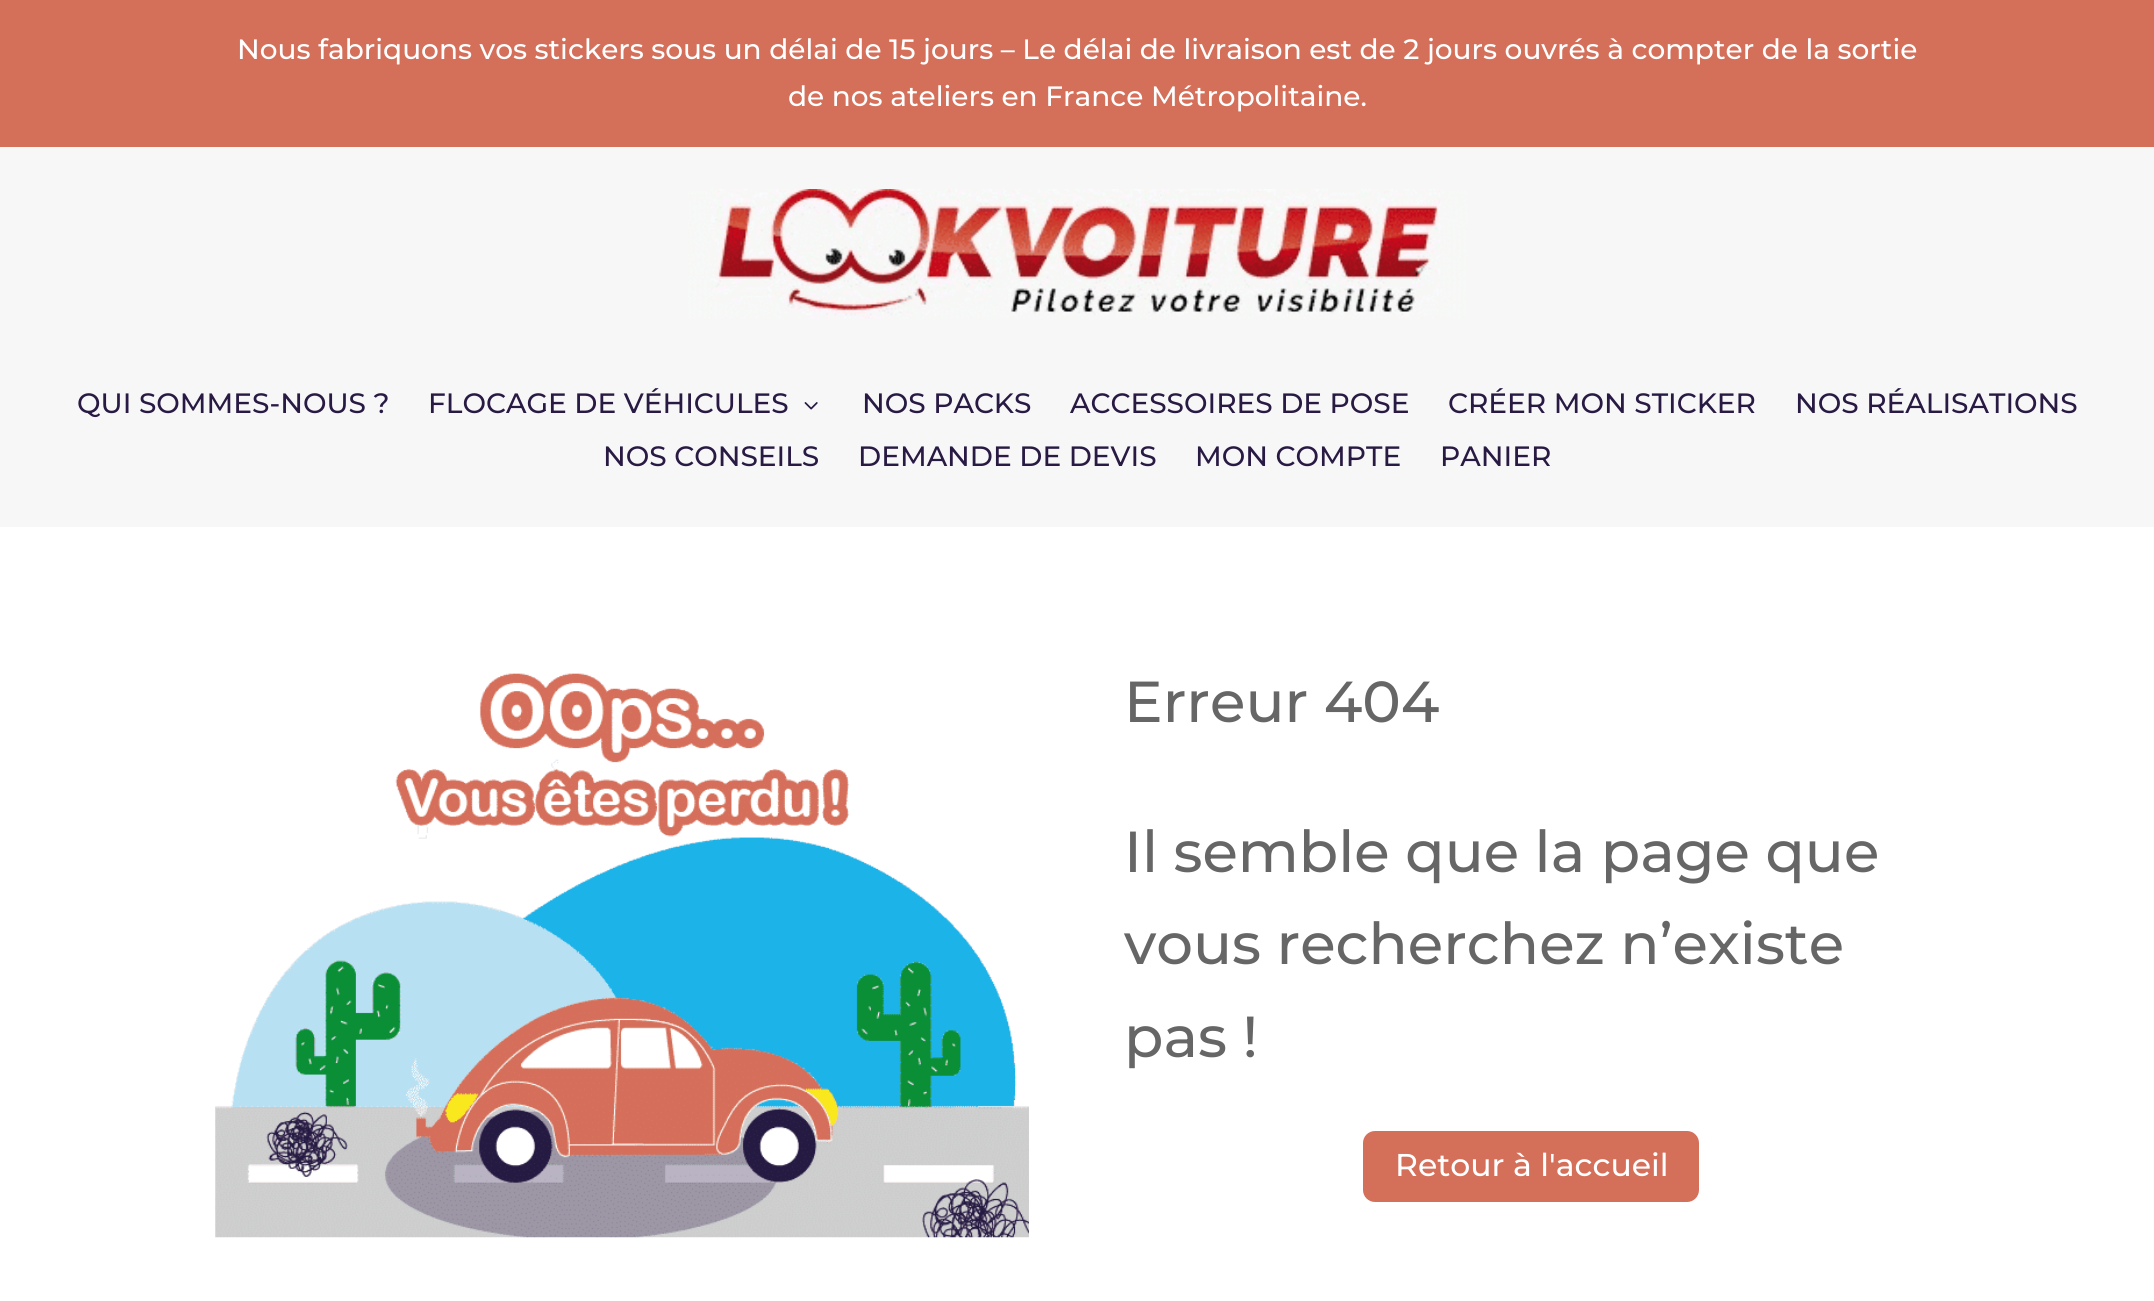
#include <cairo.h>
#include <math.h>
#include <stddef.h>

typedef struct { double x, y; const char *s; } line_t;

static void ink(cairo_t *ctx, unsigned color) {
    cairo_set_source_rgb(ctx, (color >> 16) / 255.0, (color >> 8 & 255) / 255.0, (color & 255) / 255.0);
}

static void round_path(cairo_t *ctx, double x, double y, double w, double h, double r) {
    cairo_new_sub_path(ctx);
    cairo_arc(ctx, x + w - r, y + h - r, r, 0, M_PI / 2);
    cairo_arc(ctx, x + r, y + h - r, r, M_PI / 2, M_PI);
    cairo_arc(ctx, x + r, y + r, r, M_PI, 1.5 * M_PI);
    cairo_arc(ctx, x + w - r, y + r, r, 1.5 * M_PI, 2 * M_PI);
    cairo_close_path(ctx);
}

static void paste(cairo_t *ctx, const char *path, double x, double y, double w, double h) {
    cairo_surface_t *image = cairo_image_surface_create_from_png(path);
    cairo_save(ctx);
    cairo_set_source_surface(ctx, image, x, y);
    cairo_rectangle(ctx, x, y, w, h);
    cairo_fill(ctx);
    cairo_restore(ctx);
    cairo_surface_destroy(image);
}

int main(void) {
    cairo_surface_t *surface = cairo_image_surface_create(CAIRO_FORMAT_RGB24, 2154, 1301);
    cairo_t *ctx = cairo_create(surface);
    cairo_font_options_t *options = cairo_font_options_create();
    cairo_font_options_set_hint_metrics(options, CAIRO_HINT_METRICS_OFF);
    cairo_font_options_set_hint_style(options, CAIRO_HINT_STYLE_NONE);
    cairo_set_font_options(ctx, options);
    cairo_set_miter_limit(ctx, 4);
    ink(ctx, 0xFFFFFF);
    cairo_paint(ctx);
    ink(ctx, 0xD46F5A);
    cairo_rectangle(ctx, 0, 0, 2154, 147);
    cairo_fill(ctx);
    cairo_select_font_face(ctx, "Montserrat Thin", CAIRO_FONT_SLANT_NORMAL, CAIRO_FONT_WEIGHT_NORMAL);
    cairo_set_font_size(ctx, 28);
    ink(ctx, 0xFFFFFF);
    cairo_move_to(ctx, 237, 59);
    cairo_show_text(ctx, "Nous fabriquons vos stickers sous un délai de 15 jours – Le délai de livraison est de 2 jours ouvrés à compter de la sortie");
    cairo_move_to(ctx, 788, 106);
    cairo_show_text(ctx, "de nos ateliers en France Métropolitaine.");
    ink(ctx, 0xF7F7F7);
    cairo_rectangle(ctx, 0, 147, 2154, 380);
    cairo_fill(ctx);
    paste(ctx, "media/1.png", 688, 189, 780, 130);
    ink(ctx, 0x291A44);
    cairo_move_to(ctx, 77, 413);
    cairo_show_text(ctx, "QUI SOMMES-NOUS ?");
    cairo_move_to(ctx, 428, 413);
    cairo_show_text(ctx, "FLOCAGE DE VÉHICULES");
    paste(ctx, "media/2.png", 804, 402, 14, 8);
    {
        static const line_t items[] = {
            {862, 413, "NOS PACKS"},
            {1070, 413, "ACCESSOIRES DE POSE"},
            {1448, 413, "CRÉER MON STICKER"},
            {1795, 413, "NOS RÉALISATIONS"},
            {603, 466, "NOS CONSEILS"},
            {858, 466, "DEMANDE DE DEVIS"},
            {1195, 466, "MON COMPTE"},
            {1440, 466, "PANIER"},
        };
        for (size_t i = 0; i < sizeof items / sizeof *items; i++) {
            cairo_move_to(ctx, items[i].x, items[i].y);
            cairo_show_text(ctx, items[i].s);
        }
    }
    paste(ctx, "media/3.png", 215, 673, 814, 565);
    cairo_set_font_size(ctx, 57.75);
    ink(ctx, 0x666666);
    {
        static const line_t items[] = {
            {1124, 722, "Erreur 404"},
            {1124, 872, "Il semble que la page que"},
            {1124, 964, "vous recherchez n’existe"},
            {1124, 1057, "pas !"},
        };
        for (size_t i = 0; i < sizeof items / sizeof *items; i++) {
            cairo_move_to(ctx, items[i].x, items[i].y);
            cairo_show_text(ctx, items[i].s);
        }
    }
    ink(ctx, 0xD46F5A);
    round_path(ctx, 1363, 1131, 336, 71, 12);
    cairo_fill(ctx);
    cairo_set_font_size(ctx, 31.5);
    ink(ctx, 0xFFFFFF);
    cairo_move_to(ctx, 1395, 1176);
    cairo_show_text(ctx, "Retour à l'accueil");
    cairo_surface_write_to_png(surface, "image.png");
    cairo_font_options_destroy(options);
    cairo_destroy(ctx);
    cairo_surface_destroy(surface);
    return 0;
}
